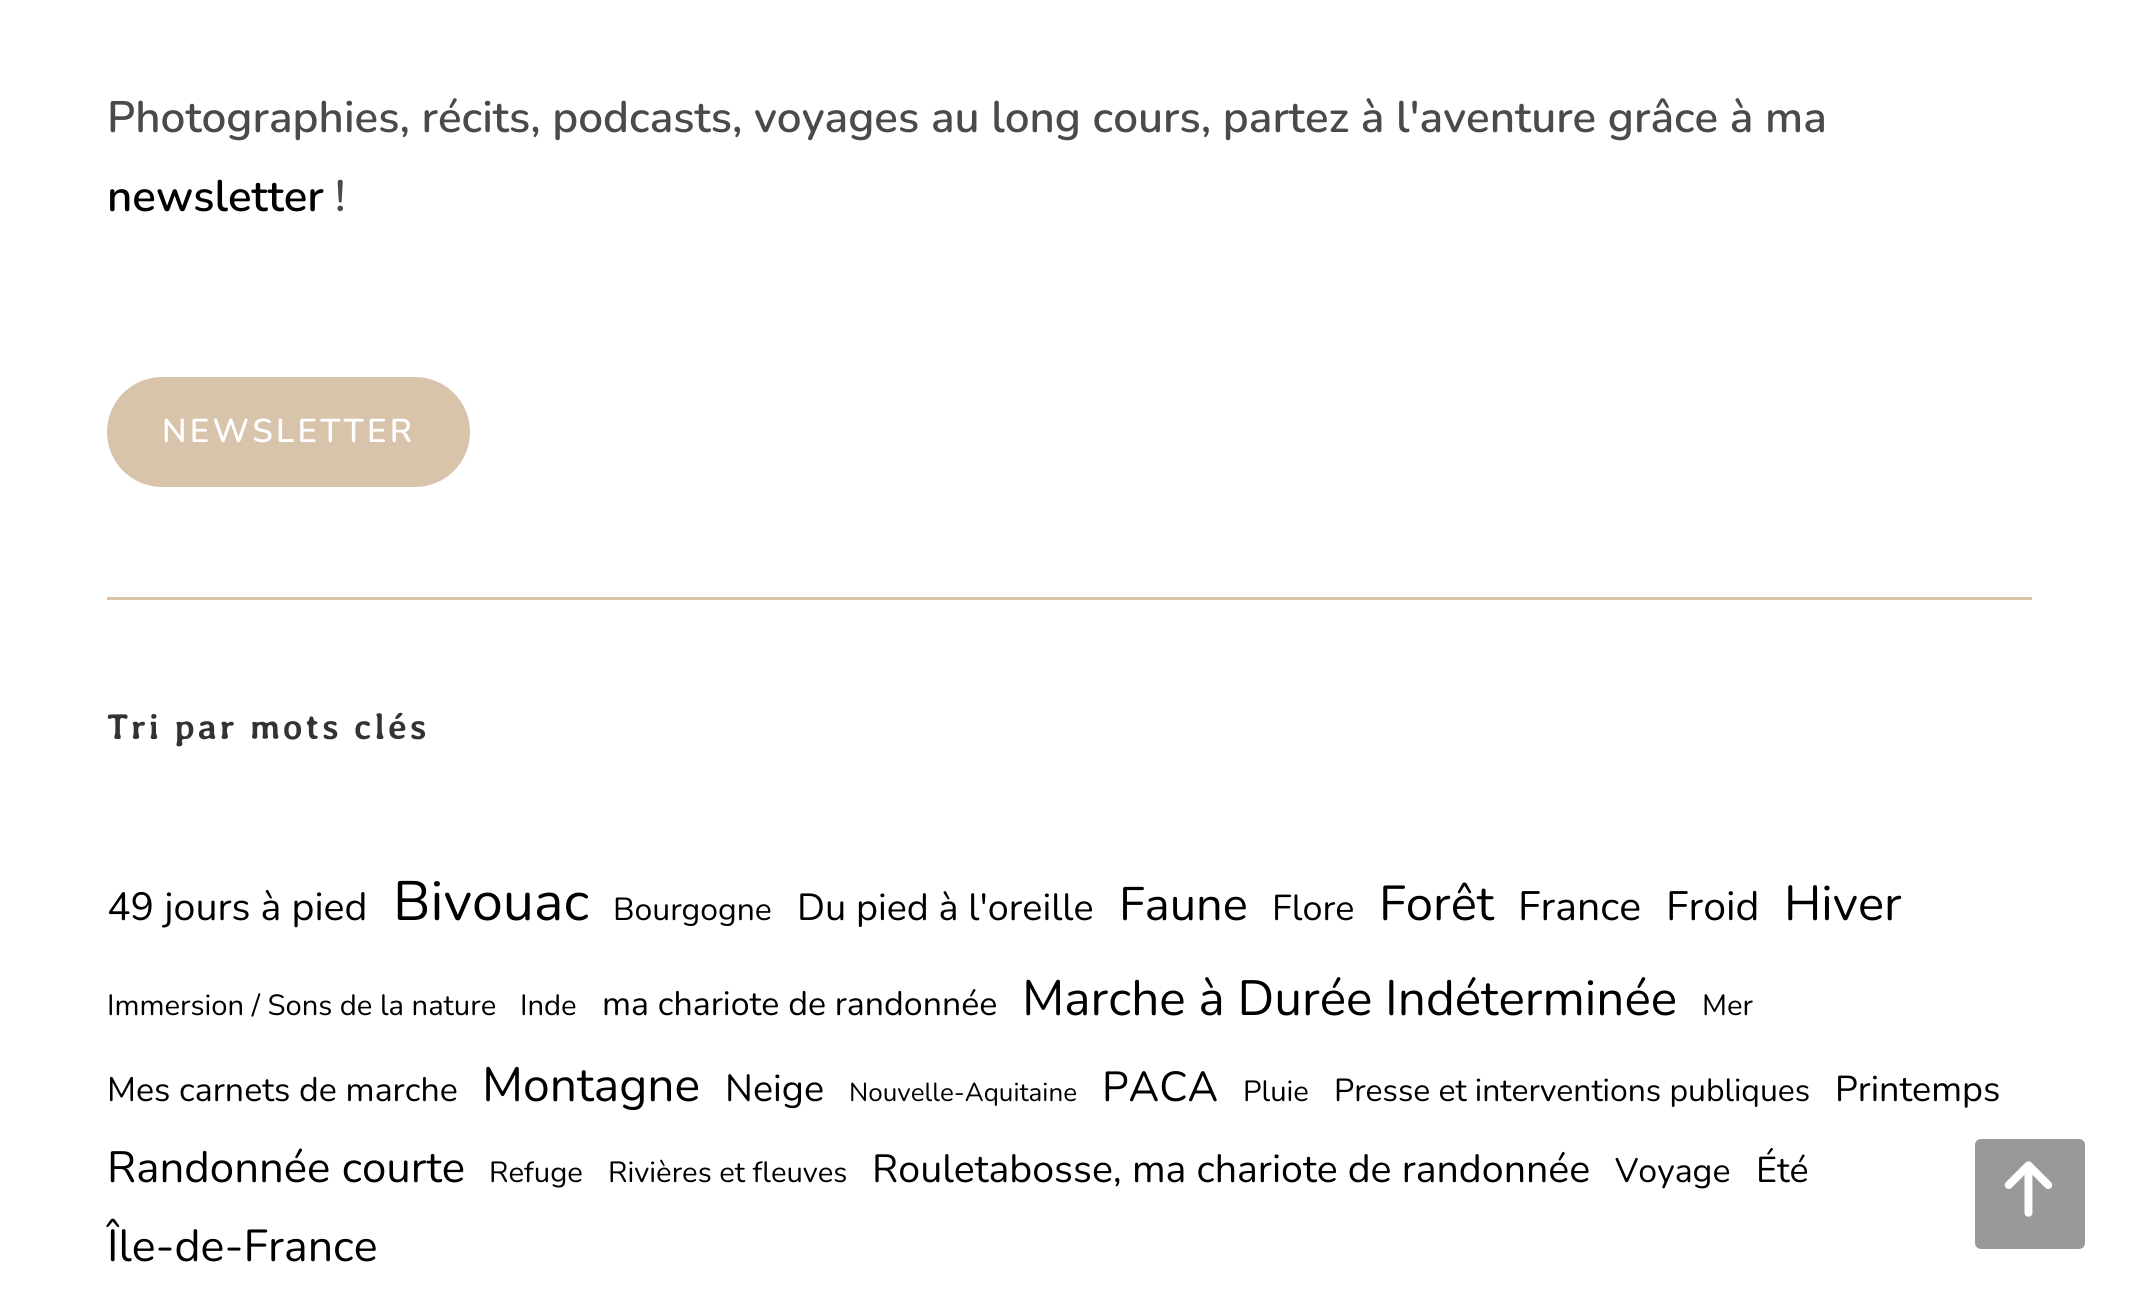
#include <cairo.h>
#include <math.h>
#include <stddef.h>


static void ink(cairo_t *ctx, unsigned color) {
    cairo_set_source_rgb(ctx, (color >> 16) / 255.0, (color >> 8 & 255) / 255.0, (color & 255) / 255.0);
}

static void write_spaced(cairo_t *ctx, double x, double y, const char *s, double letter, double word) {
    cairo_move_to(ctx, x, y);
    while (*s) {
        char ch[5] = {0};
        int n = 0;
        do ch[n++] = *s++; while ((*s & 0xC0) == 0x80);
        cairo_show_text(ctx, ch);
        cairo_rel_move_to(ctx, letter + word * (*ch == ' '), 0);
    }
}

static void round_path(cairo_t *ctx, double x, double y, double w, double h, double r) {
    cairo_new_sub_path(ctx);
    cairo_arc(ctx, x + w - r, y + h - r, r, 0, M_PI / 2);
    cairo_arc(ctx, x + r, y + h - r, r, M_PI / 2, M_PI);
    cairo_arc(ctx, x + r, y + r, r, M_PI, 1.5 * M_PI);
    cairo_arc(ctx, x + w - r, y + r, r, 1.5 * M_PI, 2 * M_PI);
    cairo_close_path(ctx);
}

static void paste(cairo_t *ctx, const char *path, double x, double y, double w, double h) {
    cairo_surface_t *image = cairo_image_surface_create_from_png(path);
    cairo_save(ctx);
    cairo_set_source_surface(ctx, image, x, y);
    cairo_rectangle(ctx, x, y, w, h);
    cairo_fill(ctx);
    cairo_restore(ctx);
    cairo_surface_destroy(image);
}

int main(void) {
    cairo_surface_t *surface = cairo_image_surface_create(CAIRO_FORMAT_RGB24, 2137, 1303);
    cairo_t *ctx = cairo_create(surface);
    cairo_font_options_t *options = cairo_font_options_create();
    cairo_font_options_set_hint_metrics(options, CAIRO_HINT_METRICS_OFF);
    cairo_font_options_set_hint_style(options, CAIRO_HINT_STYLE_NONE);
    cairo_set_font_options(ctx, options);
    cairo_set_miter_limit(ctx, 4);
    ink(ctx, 0xFFFFFF);
    cairo_paint(ctx);
    cairo_select_font_face(ctx, "Nunito ExtraLight", CAIRO_FONT_SLANT_NORMAL, CAIRO_FONT_WEIGHT_NORMAL);
    cairo_set_font_size(ctx, 44);
    ink(ctx, 0x4A4A4A);
    cairo_move_to(ctx, 107, 132);
    cairo_show_text(ctx, "Photographies, récits, podcasts, voyages au long cours, partez à l'aventure grâce à ma");
    ink(ctx, 0x000000);
    cairo_move_to(ctx, 107, 211);
    cairo_show_text(ctx, "newsletter");
    ink(ctx, 0x4A4A4A);
    cairo_move_to(ctx, 335, 211);
    cairo_show_text(ctx, "!");
    ink(ctx, 0xD8C3AB);
    round_path(ctx, 107, 377, 363, 110, 55);
    cairo_fill(ctx);
    cairo_set_font_size(ctx, 33);
    ink(ctx, 0xFFFFFF);
    write_spaced(ctx, 162, 442, "NEWSLETTER", 3.25, 0);
    ink(ctx, 0xD8C3AB);
    cairo_rectangle(ctx, 107, 597, 1925, 3);
    cairo_fill(ctx);
    cairo_select_font_face(ctx, "Averia Libre", CAIRO_FONT_SLANT_NORMAL, CAIRO_FONT_WEIGHT_BOLD);
    cairo_set_font_size(ctx, 35.75);
    ink(ctx, 0x333333);
    write_spaced(ctx, 107, 739, "Tri par mots clés", 2.75, 0);
    cairo_select_font_face(ctx, "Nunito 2 ExtraLight", CAIRO_FONT_SLANT_NORMAL, CAIRO_FONT_WEIGHT_NORMAL);
    cairo_set_font_size(ctx, 39.3);
    ink(ctx, 0x000000);
    cairo_move_to(ctx, 107, 920);
    cairo_show_text(ctx, "49 jours à pied");
    cairo_set_font_size(ctx, 55.5);
    cairo_move_to(ctx, 393, 920);
    cairo_show_text(ctx, "Bivouac");
    cairo_set_font_size(ctx, 31.9);
    cairo_move_to(ctx, 613, 920);
    cairo_show_text(ctx, "Bourgogne");
    cairo_set_font_size(ctx, 37.75);
    cairo_move_to(ctx, 797, 920);
    cairo_show_text(ctx, "Du pied à l'oreille");
    cairo_set_font_size(ctx, 47);
    cairo_move_to(ctx, 1119, 920);
    cairo_show_text(ctx, "Faune");
    cairo_set_font_size(ctx, 36);
    cairo_move_to(ctx, 1272, 920);
    cairo_show_text(ctx, "Flore");
    cairo_set_font_size(ctx, 49);
    cairo_move_to(ctx, 1379, 920);
    cairo_show_text(ctx, "Forêt");
    cairo_set_font_size(ctx, 41);
    cairo_move_to(ctx, 1518, 920);
    cairo_show_text(ctx, "France");
    cairo_move_to(ctx, 1666, 920);
    cairo_show_text(ctx, "Froid");
    cairo_set_font_size(ctx, 49);
    cairo_move_to(ctx, 1784, 920);
    cairo_show_text(ctx, "Hiver");
    cairo_set_font_size(ctx, 29.2);
    cairo_move_to(ctx, 107, 1015);
    cairo_show_text(ctx, "Immersion / Sons de la nature");
    cairo_move_to(ctx, 520, 1015);
    cairo_show_text(ctx, "Inde");
    cairo_set_font_size(ctx, 33.9);
    cairo_move_to(ctx, 602, 1015);
    cairo_show_text(ctx, "ma chariote de randonnée");
    cairo_set_font_size(ctx, 49.5);
    cairo_move_to(ctx, 1022, 1015);
    cairo_show_text(ctx, "Marche à Durée Indéterminée");
    cairo_set_font_size(ctx, 29.2);
    cairo_move_to(ctx, 1702, 1015);
    cairo_show_text(ctx, "Mer");
    cairo_set_font_size(ctx, 33.9);
    cairo_move_to(ctx, 107, 1101);
    cairo_show_text(ctx, "Mes carnets de marche");
    cairo_set_font_size(ctx, 48);
    cairo_move_to(ctx, 482, 1101);
    cairo_show_text(ctx, "Montagne");
    cairo_set_font_size(ctx, 37.75);
    cairo_move_to(ctx, 725, 1101);
    cairo_show_text(ctx, "Neige");
    cairo_set_font_size(ctx, 26);
    cairo_move_to(ctx, 849, 1101);
    cairo_show_text(ctx, "Nouvelle-Aquitaine");
    cairo_set_font_size(ctx, 42);
    cairo_move_to(ctx, 1102, 1101);
    cairo_show_text(ctx, "PACA");
    cairo_set_font_size(ctx, 29.2);
    cairo_move_to(ctx, 1243, 1101);
    cairo_show_text(ctx, "Pluie");
    cairo_set_font_size(ctx, 31.9);
    cairo_move_to(ctx, 1334, 1101);
    cairo_show_text(ctx, "Presse et interventions publiques");
    cairo_set_font_size(ctx, 36);
    cairo_move_to(ctx, 1835, 1101);
    cairo_show_text(ctx, "Printemps");
    cairo_set_font_size(ctx, 43.75);
    cairo_move_to(ctx, 107, 1182);
    cairo_show_text(ctx, "Randonnée courte");
    cairo_set_font_size(ctx, 29.2);
    cairo_move_to(ctx, 489, 1182);
    cairo_show_text(ctx, "Refuge");
    cairo_move_to(ctx, 608, 1182);
    cairo_show_text(ctx, "Rivières et fleuves");
    cairo_set_font_size(ctx, 39.3);
    cairo_move_to(ctx, 872, 1182);
    cairo_show_text(ctx, "Rouletabosse, ma chariote de randonnée");
    cairo_set_font_size(ctx, 33.9);
    cairo_move_to(ctx, 1615, 1182);
    cairo_show_text(ctx, "Voyage");
    cairo_set_font_size(ctx, 36);
    cairo_move_to(ctx, 1756, 1182);
    cairo_show_text(ctx, "Été");
    cairo_set_font_size(ctx, 44.75);
    cairo_move_to(ctx, 107, 1261);
    cairo_show_text(ctx, "Île-de-France");
    ink(ctx, 0x999999);
    round_path(ctx, 1975, 1139, 110, 110, 6);
    cairo_fill(ctx);
    paste(ctx, "media/1.png", 2004, 1161, 49, 56);
    cairo_surface_write_to_png(surface, "image.png");
    cairo_font_options_destroy(options);
    cairo_destroy(ctx);
    cairo_surface_destroy(surface);
    return 0;
}
